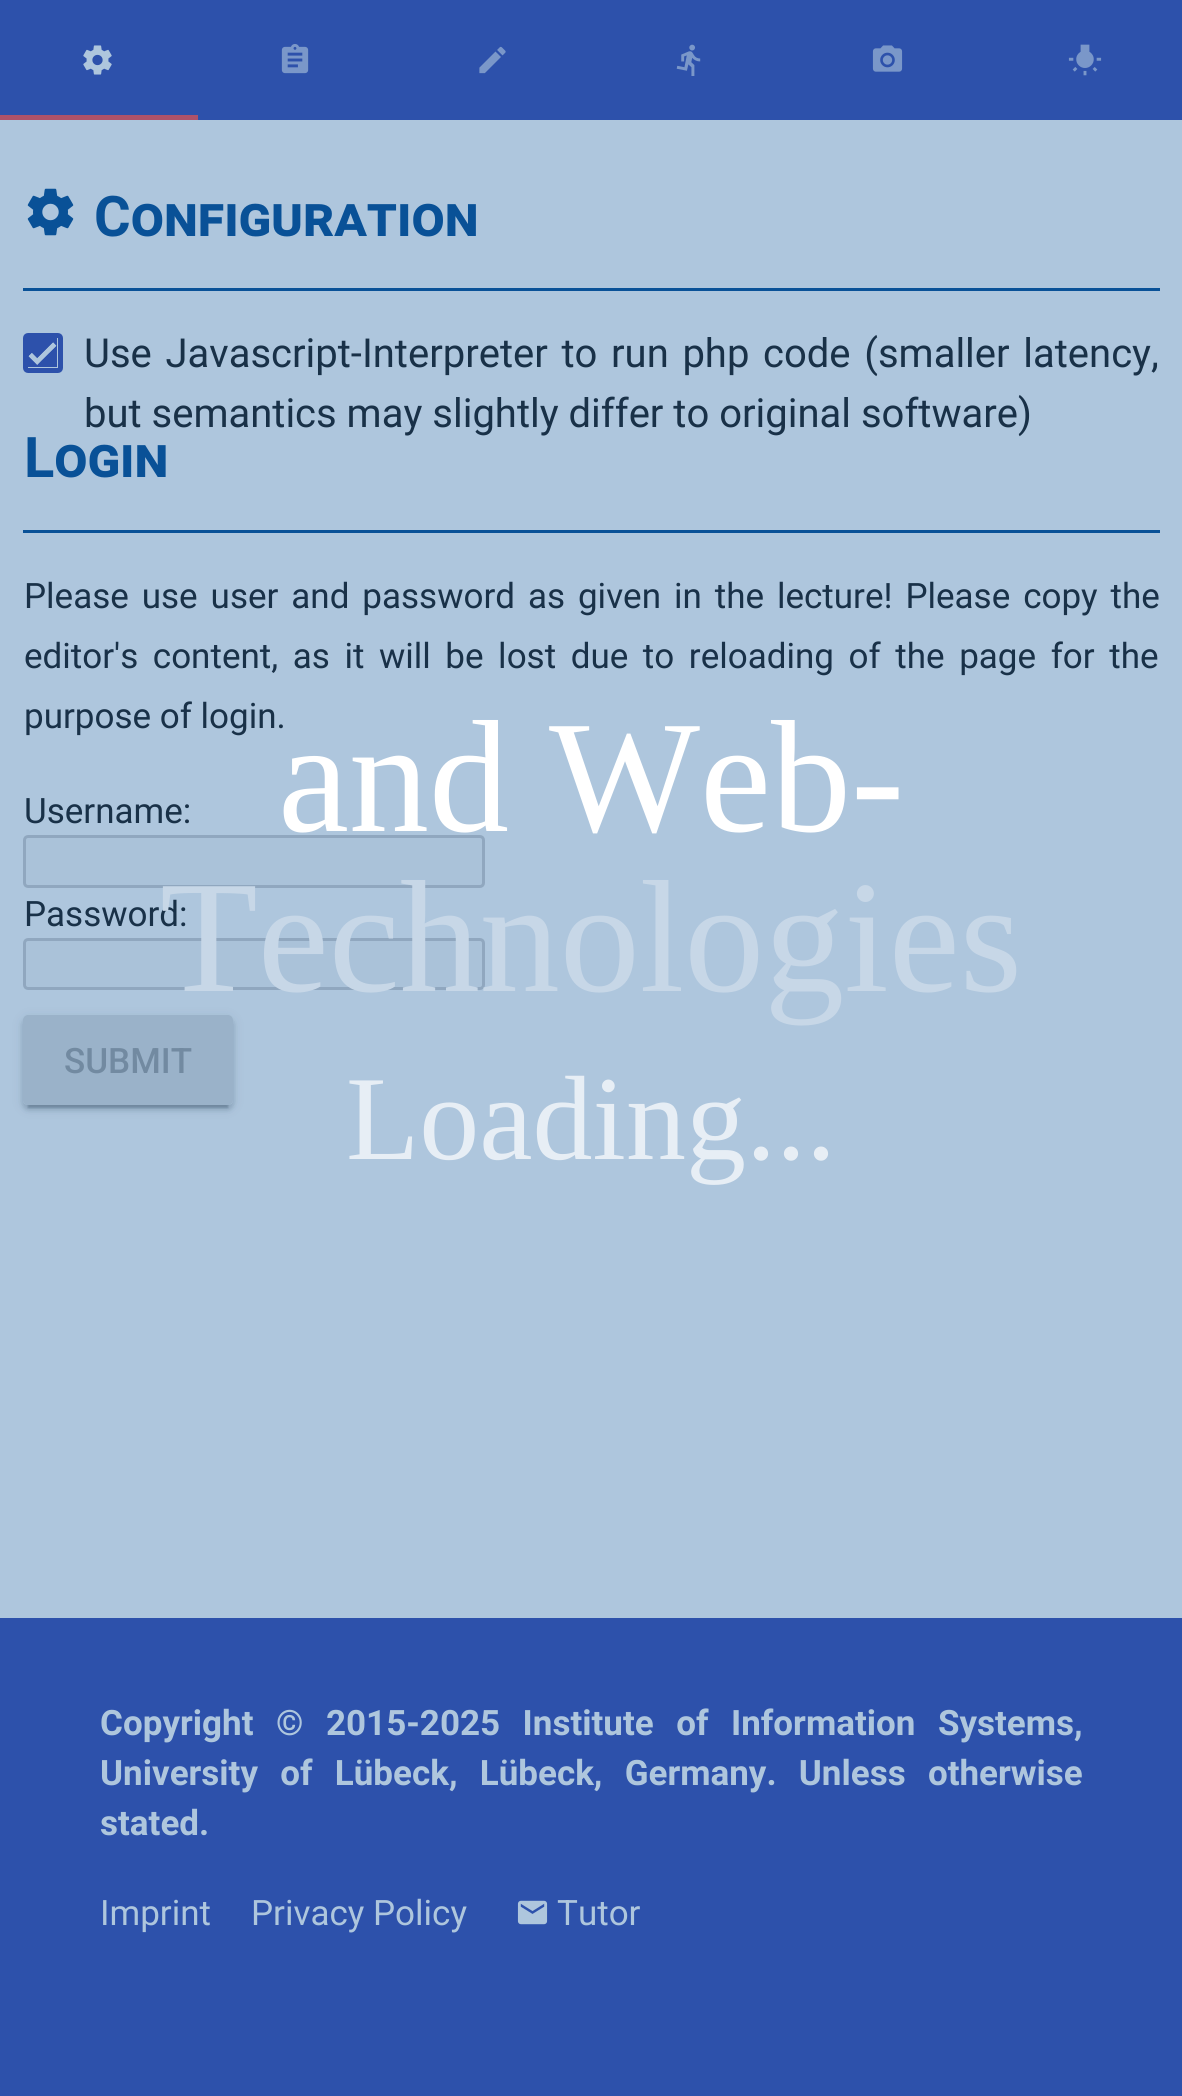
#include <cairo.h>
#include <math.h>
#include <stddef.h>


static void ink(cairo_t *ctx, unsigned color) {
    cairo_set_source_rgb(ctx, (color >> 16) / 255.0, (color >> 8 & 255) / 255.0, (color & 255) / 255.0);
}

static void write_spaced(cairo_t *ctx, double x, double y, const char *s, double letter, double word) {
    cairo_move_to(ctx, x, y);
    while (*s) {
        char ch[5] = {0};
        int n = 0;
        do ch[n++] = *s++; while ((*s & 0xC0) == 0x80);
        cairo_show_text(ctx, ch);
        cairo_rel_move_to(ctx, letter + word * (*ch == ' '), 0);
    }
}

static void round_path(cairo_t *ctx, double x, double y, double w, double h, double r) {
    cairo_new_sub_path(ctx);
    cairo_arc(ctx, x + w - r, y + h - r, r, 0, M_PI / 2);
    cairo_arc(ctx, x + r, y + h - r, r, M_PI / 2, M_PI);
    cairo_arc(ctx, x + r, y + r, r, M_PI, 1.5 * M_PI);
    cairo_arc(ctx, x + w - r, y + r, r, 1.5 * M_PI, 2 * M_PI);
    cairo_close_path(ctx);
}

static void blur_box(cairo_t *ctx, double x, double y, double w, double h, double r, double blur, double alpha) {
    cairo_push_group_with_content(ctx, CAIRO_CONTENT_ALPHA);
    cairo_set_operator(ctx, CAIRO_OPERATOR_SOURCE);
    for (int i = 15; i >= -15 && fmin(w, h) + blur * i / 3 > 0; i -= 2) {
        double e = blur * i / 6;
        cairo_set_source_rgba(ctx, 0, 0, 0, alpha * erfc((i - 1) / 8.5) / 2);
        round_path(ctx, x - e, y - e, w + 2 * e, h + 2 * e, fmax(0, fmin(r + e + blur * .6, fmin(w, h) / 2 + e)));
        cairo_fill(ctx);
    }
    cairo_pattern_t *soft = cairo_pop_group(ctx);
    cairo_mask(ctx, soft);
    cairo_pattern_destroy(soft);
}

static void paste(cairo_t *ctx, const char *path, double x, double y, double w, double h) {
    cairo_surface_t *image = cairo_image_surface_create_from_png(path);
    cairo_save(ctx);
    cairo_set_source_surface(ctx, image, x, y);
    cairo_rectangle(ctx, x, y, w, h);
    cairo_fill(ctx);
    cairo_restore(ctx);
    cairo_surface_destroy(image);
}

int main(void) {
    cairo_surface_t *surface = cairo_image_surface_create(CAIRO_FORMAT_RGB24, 1182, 2096);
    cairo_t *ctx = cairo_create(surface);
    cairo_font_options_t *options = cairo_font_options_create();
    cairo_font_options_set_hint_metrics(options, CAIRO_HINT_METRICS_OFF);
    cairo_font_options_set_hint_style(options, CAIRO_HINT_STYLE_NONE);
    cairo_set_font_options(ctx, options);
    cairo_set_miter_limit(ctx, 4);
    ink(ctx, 0xAEC6DD);
    cairo_paint(ctx);
    ink(ctx, 0x2D51AB);
    cairo_rectangle(ctx, 0, 0, 1182, 120);
    cairo_fill(ctx);
    paste(ctx, "media/1.png", 83, 45, 29, 30);
    ink(ctx, 0xAE5269);
    cairo_rectangle(ctx, 0, 115, 198, 5);
    cairo_fill(ctx);
    paste(ctx, "media/2.png", 281, 44, 28, 30);
    paste(ctx, "media/3.png", 479, 46, 27, 28);
    paste(ctx, "media/4.png", 676, 44, 25, 32);
    paste(ctx, "media/5.png", 872, 45, 31, 27);
    paste(ctx, "media/6.png", 1068, 44, 34, 32);
    ink(ctx, 0x095197);
    cairo_rectangle(ctx, 23, 288, 1137, 3);
    cairo_fill(ctx);
    paste(ctx, "media/7.png", 27, 188, 47, 48);
    cairo_select_font_face(ctx, "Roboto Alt", CAIRO_FONT_SLANT_NORMAL, CAIRO_FONT_WEIGHT_BOLD);
    cairo_set_font_size(ctx, 56);
    cairo_move_to(ctx, 94, 236);
    cairo_show_text(ctx, "Configuration");
    round_path(ctx, 25.5, 335.5, 35, 35, 2.5);
    ink(ctx, 0x2D51AB);
    cairo_set_line_width(ctx, 5);
    cairo_stroke(ctx);
    paste(ctx, "media/8.png", 28, 338, 29, 29);
    cairo_select_font_face(ctx, "Roboto", CAIRO_FONT_SLANT_NORMAL, CAIRO_FONT_WEIGHT_NORMAL);
    cairo_set_font_size(ctx, 40);
    ink(ctx, 0x193148);
    write_spaced(ctx, 84, 367, "Use Javascript-Interpreter to run php code (smaller latency,", 0, 3.75);
    cairo_move_to(ctx, 84, 427);
    cairo_show_text(ctx, "but semantics may slightly differ to original software)");
    ink(ctx, 0x095197);
    cairo_rectangle(ctx, 23, 530, 1137, 3);
    cairo_fill(ctx);
    cairo_select_font_face(ctx, "Roboto Alt", CAIRO_FONT_SLANT_NORMAL, CAIRO_FONT_WEIGHT_BOLD);
    cairo_set_font_size(ctx, 56);
    cairo_move_to(ctx, 24, 477);
    cairo_show_text(ctx, "Login");
    cairo_select_font_face(ctx, "Roboto", CAIRO_FONT_SLANT_NORMAL, CAIRO_FONT_WEIGHT_NORMAL);
    cairo_set_font_size(ctx, 35);
    ink(ctx, 0x193148);
    write_spaced(ctx, 24, 608, "Please use user and password as given in the lecture! Please copy the", 0, 4.25);
    write_spaced(ctx, 24, 668, "editor's content, as it will be lost due to reloading of the page for the", 0, 5.9);
    cairo_move_to(ctx, 24, 728);
    cairo_show_text(ctx, "purpose of login.");
    cairo_move_to(ctx, 24, 823);
    cairo_show_text(ctx, "Username:");
    ink(ctx, 0xAAC2D9);
    round_path(ctx, 24.5, 836.5, 459, 50, 3.5);
    cairo_fill_preserve(ctx);
    ink(ctx, 0x90A7BF);
    cairo_set_line_width(ctx, 3);
    cairo_stroke(ctx);
    ink(ctx, 0x193148);
    cairo_move_to(ctx, 24, 926);
    cairo_show_text(ctx, "Password:");
    ink(ctx, 0xAAC2D9);
    round_path(ctx, 24.5, 939.5, 459, 49, 3.5);
    cairo_fill_preserve(ctx);
    ink(ctx, 0x90A7BF);
    cairo_stroke(ctx);
    cairo_save(ctx);
    cairo_set_fill_rule(ctx, CAIRO_FILL_RULE_EVEN_ODD);
    cairo_new_path(ctx);
    cairo_move_to(ctx, 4, 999);
    cairo_line_to(ctx, 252, 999);
    cairo_line_to(ctx, 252, 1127);
    cairo_line_to(ctx, 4, 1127);
    cairo_close_path(ctx);
    cairo_move_to(ctx, 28, 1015);
    cairo_line_to(ctx, 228, 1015);
    cairo_curve_to(ctx, 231, 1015, 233, 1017, 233, 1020);
    cairo_line_to(ctx, 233, 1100);
    cairo_curve_to(ctx, 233, 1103, 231, 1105, 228, 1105);
    cairo_line_to(ctx, 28, 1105);
    cairo_curve_to(ctx, 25, 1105, 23, 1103, 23, 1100);
    cairo_line_to(ctx, 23, 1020);
    cairo_curve_to(ctx, 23, 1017, 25, 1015, 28, 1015);
    cairo_close_path(ctx);
    cairo_clip(ctx);
    ink(ctx, 0x031B32);
    blur_box(ctx, 23, 1018, 210, 90, 5, 6, 0.12);
    cairo_restore(ctx);
    cairo_save(ctx);
    cairo_rectangle(ctx, 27, 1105, 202, 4);
    cairo_clip(ctx);
    ink(ctx, 0x031B32);
    blur_box(ctx, 28, 1028, 200, 80, 0, 1, 0.2);
    cairo_restore(ctx);
    cairo_save(ctx);
    cairo_set_fill_rule(ctx, CAIRO_FILL_RULE_EVEN_ODD);
    cairo_new_path(ctx);
    cairo_move_to(ctx, 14, 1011);
    cairo_line_to(ctx, 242, 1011);
    cairo_line_to(ctx, 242, 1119);
    cairo_line_to(ctx, 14, 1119);
    cairo_close_path(ctx);
    cairo_move_to(ctx, 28, 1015);
    cairo_line_to(ctx, 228, 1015);
    cairo_curve_to(ctx, 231, 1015, 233, 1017, 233, 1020);
    cairo_line_to(ctx, 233, 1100);
    cairo_curve_to(ctx, 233, 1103, 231, 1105, 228, 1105);
    cairo_line_to(ctx, 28, 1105);
    cairo_curve_to(ctx, 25, 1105, 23, 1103, 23, 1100);
    cairo_line_to(ctx, 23, 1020);
    cairo_curve_to(ctx, 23, 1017, 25, 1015, 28, 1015);
    cairo_close_path(ctx);
    cairo_clip(ctx);
    ink(ctx, 0x031B32);
    blur_box(ctx, 23, 1020, 210, 90, 5, 2.5, 0.14);
    cairo_restore(ctx);
    cairo_set_source_rgba(ctx, 0.012, 0.106, 0.196, 0.12);
    round_path(ctx, 23, 1015, 210, 90, 5);
    cairo_fill(ctx);
    cairo_select_font_face(ctx, "Roboto Medium", CAIRO_FONT_SLANT_NORMAL, CAIRO_FONT_WEIGHT_NORMAL);
    ink(ctx, 0x728AA1);
    cairo_move_to(ctx, 64, 1073);
    cairo_show_text(ctx, "SUBMIT");
    ink(ctx, 0x2D51AB);
    cairo_rectangle(ctx, 0, 1618, 1182, 478);
    cairo_fill(ctx);
    cairo_select_font_face(ctx, "Roboto", CAIRO_FONT_SLANT_NORMAL, CAIRO_FONT_WEIGHT_BOLD);
    ink(ctx, 0xAEC6DD);
    write_spaced(ctx, 100, 1735, "Copyright © 2015-2025 Institute of Information Systems,", 0, 13.75);
    write_spaced(ctx, 100, 1785, "University of Lübeck, Lübeck, Germany. Unless otherwise", 0, 13.5);
    cairo_move_to(ctx, 100, 1835);
    cairo_show_text(ctx, "stated.");
    cairo_select_font_face(ctx, "Roboto", CAIRO_FONT_SLANT_NORMAL, CAIRO_FONT_WEIGHT_NORMAL);
    cairo_move_to(ctx, 100, 1925);
    cairo_show_text(ctx, "Imprint");
    cairo_move_to(ctx, 251, 1925);
    cairo_show_text(ctx, "Privacy Policy");
    paste(ctx, "media/9.png", 517, 1900, 31, 25);
    cairo_move_to(ctx, 557, 1925);
    cairo_show_text(ctx, "Tutor");
    cairo_select_font_face(ctx, "Liberation Serif", CAIRO_FONT_SLANT_NORMAL, CAIRO_FONT_WEIGHT_NORMAL);
    cairo_set_font_size(ctx, 160);
    ink(ctx, 0xFFFFFF);
    cairo_move_to(ctx, 278, 831);
    cairo_show_text(ctx, "and Web-");
    ink(ctx, 0xC7D7E7);
    cairo_move_to(ctx, 160, 991);
    cairo_show_text(ctx, "Technologies");
    cairo_set_font_size(ctx, 120);
    ink(ctx, 0xE7EEF5);
    cairo_move_to(ctx, 346, 1159);
    cairo_show_text(ctx, "Loading...");
    cairo_surface_write_to_png(surface, "image.png");
    cairo_font_options_destroy(options);
    cairo_destroy(ctx);
    cairo_surface_destroy(surface);
    return 0;
}
